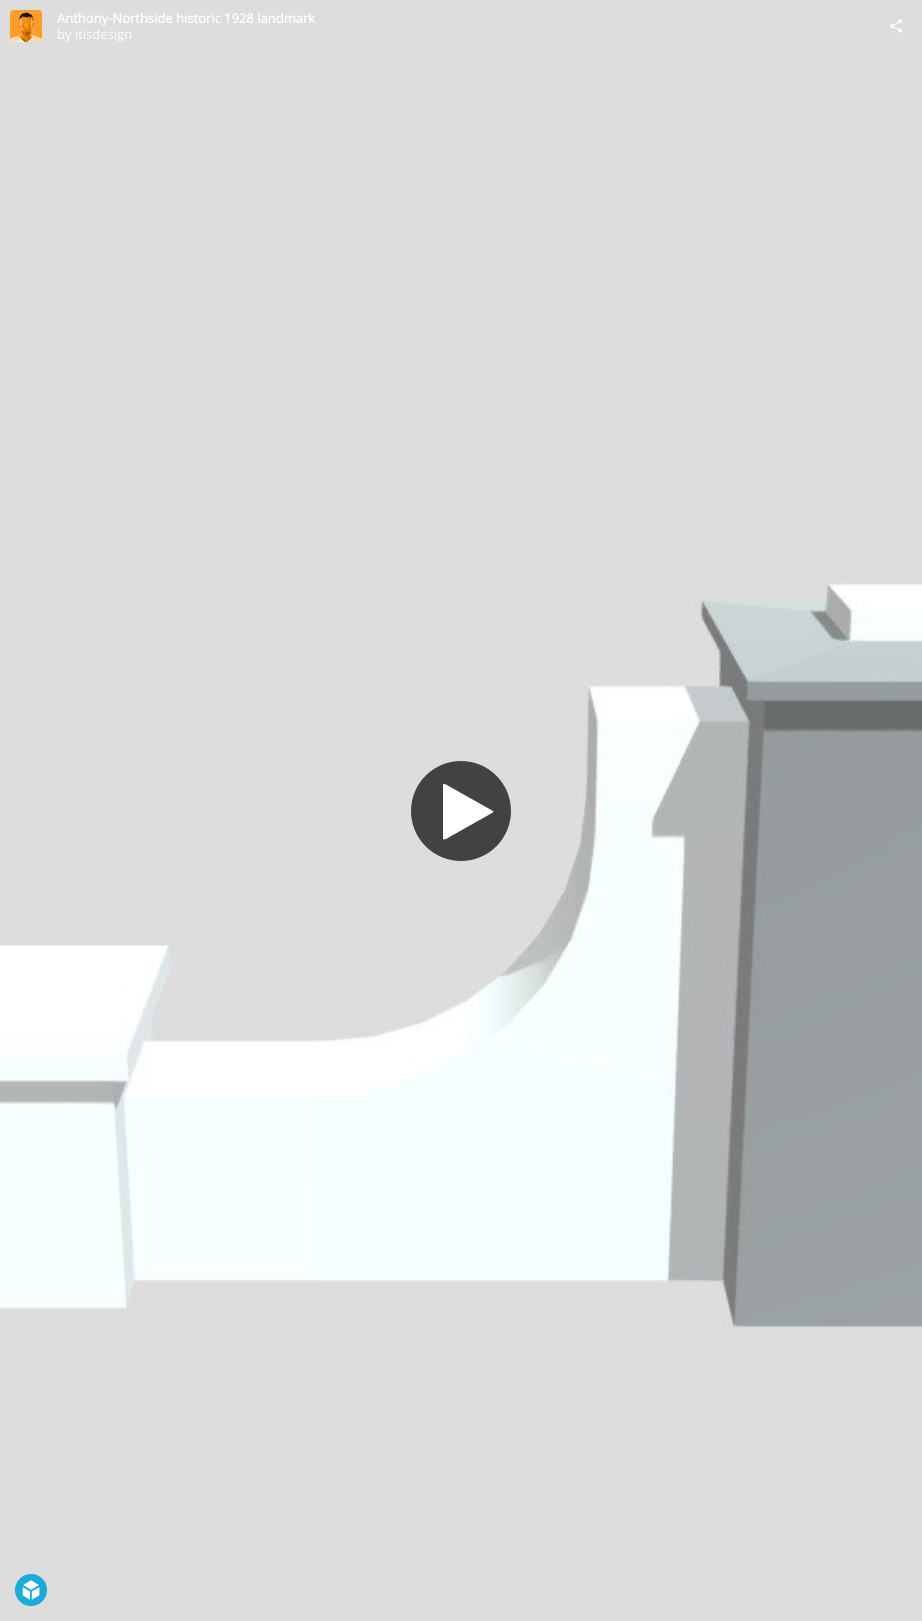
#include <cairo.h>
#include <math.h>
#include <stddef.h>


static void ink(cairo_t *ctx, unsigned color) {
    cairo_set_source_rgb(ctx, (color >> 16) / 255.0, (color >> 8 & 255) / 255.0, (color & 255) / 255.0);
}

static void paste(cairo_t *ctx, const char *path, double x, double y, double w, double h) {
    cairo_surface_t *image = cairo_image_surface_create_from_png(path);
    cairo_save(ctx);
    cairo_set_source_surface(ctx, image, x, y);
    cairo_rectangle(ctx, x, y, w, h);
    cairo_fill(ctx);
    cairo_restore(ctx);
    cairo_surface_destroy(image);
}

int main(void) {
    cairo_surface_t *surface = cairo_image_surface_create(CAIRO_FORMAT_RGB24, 922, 1621);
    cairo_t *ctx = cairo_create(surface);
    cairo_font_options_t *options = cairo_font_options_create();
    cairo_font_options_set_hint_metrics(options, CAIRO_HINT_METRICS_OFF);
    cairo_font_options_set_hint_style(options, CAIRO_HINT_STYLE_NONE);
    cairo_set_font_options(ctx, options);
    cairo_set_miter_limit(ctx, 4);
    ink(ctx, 0xFFFFFF);
    cairo_paint(ctx);
    paste(ctx, "media/1.png", 0, 0, 922, 1621);
    ink(ctx, 0x424242);
    cairo_arc(ctx, 461, 811, 50, 0, 2 * M_PI);
    cairo_fill(ctx);
    ink(ctx, 0xFFFFFF);
    cairo_new_path(ctx);
    cairo_move_to(ctx, 492, 813);
    cairo_line_to(ctx, 453, 835);
    cairo_curve_to(ctx, 452, 835, 445, 841, 443, 839);
    cairo_line_to(ctx, 443, 785);
    cairo_curve_to(ctx, 443, 784, 444, 784, 445, 784);
    cairo_line_to(ctx, 493, 811);
    cairo_curve_to(ctx, 494, 812, 493, 812, 492, 813);
    cairo_close_path(ctx);
    cairo_fill(ctx);
    paste(ctx, "media/2.png", 15, 1574, 32, 32);
    paste(ctx, "media/3.png", 10, 10, 32, 32);
    cairo_select_font_face(ctx, "Open Sans", CAIRO_FONT_SLANT_NORMAL, CAIRO_FONT_WEIGHT_BOLD);
    cairo_set_font_size(ctx, 13);
    cairo_move_to(ctx, 57, 23);
    cairo_show_text(ctx, "Anthony-Northside historic 1928 landmark");
    cairo_select_font_face(ctx, "Open Sans", CAIRO_FONT_SLANT_NORMAL, CAIRO_FONT_WEIGHT_NORMAL);
    cairo_move_to(ctx, 57, 39);
    cairo_show_text(ctx, "by itisdesign");
    paste(ctx, "media/4.png", 890, 19, 12, 14);
    cairo_surface_write_to_png(surface, "image.png");
    cairo_font_options_destroy(options);
    cairo_destroy(ctx);
    cairo_surface_destroy(surface);
    return 0;
}
